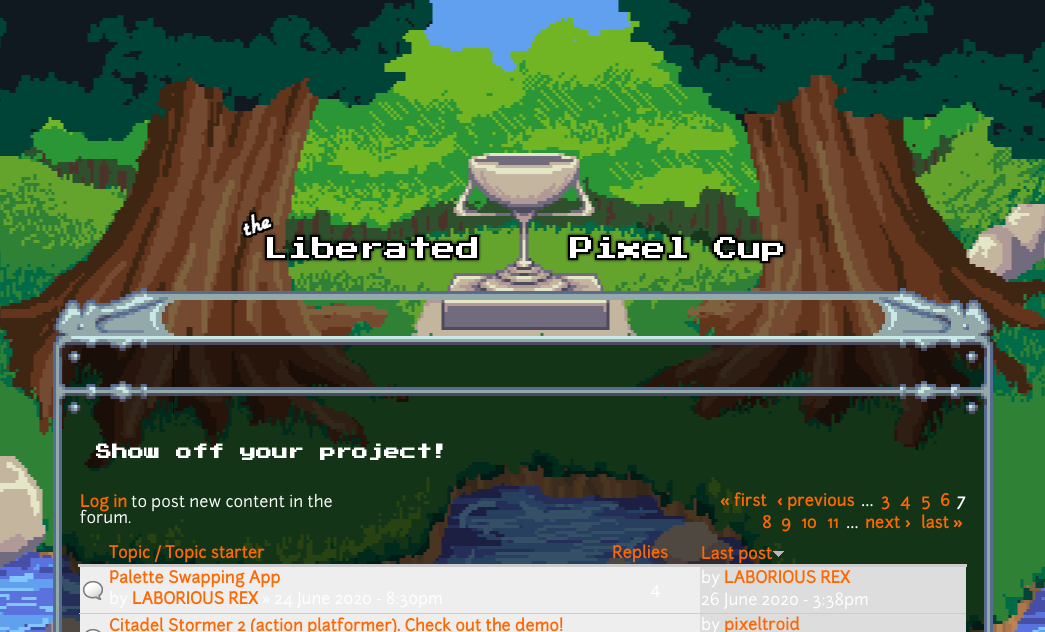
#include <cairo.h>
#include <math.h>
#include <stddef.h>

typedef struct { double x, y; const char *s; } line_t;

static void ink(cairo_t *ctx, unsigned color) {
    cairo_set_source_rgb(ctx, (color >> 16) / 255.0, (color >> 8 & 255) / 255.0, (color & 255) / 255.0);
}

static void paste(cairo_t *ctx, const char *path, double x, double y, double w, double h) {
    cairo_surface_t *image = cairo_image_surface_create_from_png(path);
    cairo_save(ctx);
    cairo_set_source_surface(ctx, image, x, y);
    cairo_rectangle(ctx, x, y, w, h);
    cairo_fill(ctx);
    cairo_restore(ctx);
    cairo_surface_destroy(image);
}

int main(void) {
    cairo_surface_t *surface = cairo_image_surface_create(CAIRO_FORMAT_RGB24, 1045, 632);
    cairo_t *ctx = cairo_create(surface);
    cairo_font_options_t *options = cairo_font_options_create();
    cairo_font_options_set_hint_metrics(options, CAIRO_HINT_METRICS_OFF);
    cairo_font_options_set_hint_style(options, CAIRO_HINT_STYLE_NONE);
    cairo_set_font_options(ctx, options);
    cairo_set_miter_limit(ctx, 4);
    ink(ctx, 0xFFFFFF);
    cairo_paint(ctx);
    paste(ctx, "media/1.png", 0, 0, 1045, 632);
    paste(ctx, "media/2.png", 241, 212, 547, 52);
    paste(ctx, "media/3.png", 53, 288, 940, 126);
    paste(ctx, "media/4.png", 53, 414, 940, 218);
    cairo_select_font_face(ctx, "Press Start 2P", CAIRO_FONT_SLANT_NORMAL, CAIRO_FONT_WEIGHT_BOLD);
    cairo_set_font_size(ctx, 16);
    ink(ctx, 0xFFFFFF);
    cairo_move_to(ctx, 96, 460);
    cairo_show_text(ctx, "Show off your project!");
    cairo_select_font_face(ctx, "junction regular", CAIRO_FONT_SLANT_NORMAL, CAIRO_FONT_WEIGHT_BOLD);
    ink(ctx, 0xFF6701);
    cairo_move_to(ctx, 80, 507);
    cairo_show_text(ctx, "Log in");
    cairo_select_font_face(ctx, "junction regular", CAIRO_FONT_SLANT_NORMAL, CAIRO_FONT_WEIGHT_NORMAL);
    ink(ctx, 0xFFFFFF);
    cairo_move_to(ctx, 131, 507);
    cairo_show_text(ctx, "to post new content in the");
    cairo_move_to(ctx, 80, 523);
    cairo_show_text(ctx, "forum.");
    cairo_select_font_face(ctx, "Noto Sans", CAIRO_FONT_SLANT_NORMAL, CAIRO_FONT_WEIGHT_BOLD);
    ink(ctx, 0xFF6701);
    cairo_move_to(ctx, 720, 506);
    cairo_show_text(ctx, "«");
    cairo_select_font_face(ctx, "junction regular", CAIRO_FONT_SLANT_NORMAL, CAIRO_FONT_WEIGHT_BOLD);
    cairo_move_to(ctx, 734, 506);
    cairo_show_text(ctx, "first");
    cairo_select_font_face(ctx, "Noto Sans", CAIRO_FONT_SLANT_NORMAL, CAIRO_FONT_WEIGHT_BOLD);
    cairo_move_to(ctx, 777, 506);
    cairo_show_text(ctx, "‹");
    cairo_select_font_face(ctx, "junction regular", CAIRO_FONT_SLANT_NORMAL, CAIRO_FONT_WEIGHT_BOLD);
    cairo_move_to(ctx, 787, 506);
    cairo_show_text(ctx, "previous");
    cairo_select_font_face(ctx, "Noto Sans", CAIRO_FONT_SLANT_NORMAL, CAIRO_FONT_WEIGHT_NORMAL);
    ink(ctx, 0xFFFFFF);
    cairo_move_to(ctx, 861, 506);
    cairo_show_text(ctx, "…");
    cairo_select_font_face(ctx, "junction regular", CAIRO_FONT_SLANT_NORMAL, CAIRO_FONT_WEIGHT_BOLD);
    ink(ctx, 0xFF6701);
    {
        static const line_t items[] = {
            {881, 506, "3"},
            {900, 506, "4"},
            {921, 506, "5"},
            {940, 506, "6"},
        };
        for (size_t i = 0; i < sizeof items / sizeof *items; i++) {
            cairo_move_to(ctx, items[i].x, items[i].y);
            cairo_show_text(ctx, items[i].s);
        }
    }
    ink(ctx, 0xFFFFFF);
    cairo_move_to(ctx, 957, 506);
    cairo_show_text(ctx, "7");
    ink(ctx, 0xFF6701);
    {
        static const line_t items[] = {
            {762, 528, "8"},
            {781, 528, "9"},
            {801, 528, "10"},
            {827, 528, "11"},
        };
        for (size_t i = 0; i < sizeof items / sizeof *items; i++) {
            cairo_move_to(ctx, items[i].x, items[i].y);
            cairo_show_text(ctx, items[i].s);
        }
    }
    cairo_select_font_face(ctx, "Noto Sans", CAIRO_FONT_SLANT_NORMAL, CAIRO_FONT_WEIGHT_NORMAL);
    ink(ctx, 0xFFFFFF);
    cairo_move_to(ctx, 846, 528);
    cairo_show_text(ctx, "…");
    cairo_select_font_face(ctx, "junction regular", CAIRO_FONT_SLANT_NORMAL, CAIRO_FONT_WEIGHT_BOLD);
    ink(ctx, 0xFF6701);
    cairo_move_to(ctx, 865, 528);
    cairo_show_text(ctx, "next");
    cairo_select_font_face(ctx, "Noto Sans", CAIRO_FONT_SLANT_NORMAL, CAIRO_FONT_WEIGHT_BOLD);
    cairo_move_to(ctx, 905, 528);
    cairo_show_text(ctx, "›");
    cairo_select_font_face(ctx, "junction regular", CAIRO_FONT_SLANT_NORMAL, CAIRO_FONT_WEIGHT_BOLD);
    cairo_move_to(ctx, 921, 528);
    cairo_show_text(ctx, "last");
    cairo_select_font_face(ctx, "Noto Sans", CAIRO_FONT_SLANT_NORMAL, CAIRO_FONT_WEIGHT_BOLD);
    cairo_move_to(ctx, 953, 528);
    cairo_show_text(ctx, "»");
    cairo_select_font_face(ctx, "junction regular", CAIRO_FONT_SLANT_NORMAL, CAIRO_FONT_WEIGHT_BOLD);
    cairo_move_to(ctx, 109, 558);
    cairo_show_text(ctx, "Topic / Topic starter");
    cairo_move_to(ctx, 612, 558);
    cairo_show_text(ctx, "Replies");
    ink(ctx, 0xCCCCCC);
    cairo_rectangle(ctx, 78, 564, 889, 3);
    cairo_fill(ctx);
    ink(ctx, 0xFF6701);
    cairo_move_to(ctx, 701, 559);
    cairo_show_text(ctx, "Last post");
    paste(ctx, "media/5.png", 773, 551, 11, 6);
    ink(ctx, 0xEEEEEE);
    cairo_rectangle(ctx, 80, 567, 620, 46);
    cairo_fill(ctx);
    ink(ctx, 0xCCCCCC);
    cairo_rectangle(ctx, 79, 613, 887, 1);
    cairo_fill(ctx);
    paste(ctx, "media/6.png", 83, 581, 20, 19);
    ink(ctx, 0xFF6701);
    cairo_move_to(ctx, 109, 583);
    cairo_show_text(ctx, "Palette Swapping App");
    cairo_select_font_face(ctx, "junction regular", CAIRO_FONT_SLANT_NORMAL, CAIRO_FONT_WEIGHT_NORMAL);
    ink(ctx, 0xFFFFFF);
    cairo_move_to(ctx, 109, 604);
    cairo_show_text(ctx, "by");
    cairo_select_font_face(ctx, "junction regular", CAIRO_FONT_SLANT_NORMAL, CAIRO_FONT_WEIGHT_BOLD);
    ink(ctx, 0xFF6701);
    cairo_move_to(ctx, 132, 604);
    cairo_show_text(ctx, "LABORIOUS REX");
    cairo_select_font_face(ctx, "Noto Sans", CAIRO_FONT_SLANT_NORMAL, CAIRO_FONT_WEIGHT_NORMAL);
    ink(ctx, 0xFFFFFF);
    cairo_move_to(ctx, 262, 604);
    cairo_show_text(ctx, "»");
    cairo_select_font_face(ctx, "junction regular", CAIRO_FONT_SLANT_NORMAL, CAIRO_FONT_WEIGHT_NORMAL);
    cairo_move_to(ctx, 274, 604);
    cairo_show_text(ctx, "24 June 2020 - 8:30pm");
    cairo_move_to(ctx, 650, 594);
    cairo_show_text(ctx, "4");
    ink(ctx, 0xDDDDDD);
    cairo_rectangle(ctx, 700, 567, 266, 46);
    cairo_fill(ctx);
    ink(ctx, 0xFFFFFF);
    cairo_move_to(ctx, 701, 583);
    cairo_show_text(ctx, "by");
    cairo_select_font_face(ctx, "junction regular", CAIRO_FONT_SLANT_NORMAL, CAIRO_FONT_WEIGHT_BOLD);
    ink(ctx, 0xFF6701);
    cairo_move_to(ctx, 724, 583);
    cairo_show_text(ctx, "LABORIOUS REX");
    cairo_select_font_face(ctx, "junction regular", CAIRO_FONT_SLANT_NORMAL, CAIRO_FONT_WEIGHT_NORMAL);
    ink(ctx, 0xFFFFFF);
    cairo_move_to(ctx, 701, 605);
    cairo_show_text(ctx, "26 June 2020 - 3:38pm");
    ink(ctx, 0xEEEEEE);
    cairo_rectangle(ctx, 80, 614, 620, 18);
    cairo_fill(ctx);
    paste(ctx, "media/7.png", 85, 629, 16, 3);
    cairo_select_font_face(ctx, "junction regular", CAIRO_FONT_SLANT_NORMAL, CAIRO_FONT_WEIGHT_BOLD);
    ink(ctx, 0xFF6701);
    cairo_move_to(ctx, 109, 631);
    cairo_show_text(ctx, "Citadel Stormer 2 (action platformer). Check out the demo!");
    ink(ctx, 0xDDDDDD);
    cairo_rectangle(ctx, 700, 614, 266, 18);
    cairo_fill(ctx);
    cairo_select_font_face(ctx, "junction regular", CAIRO_FONT_SLANT_NORMAL, CAIRO_FONT_WEIGHT_NORMAL);
    ink(ctx, 0xFFFFFF);
    cairo_move_to(ctx, 701, 630);
    cairo_show_text(ctx, "by");
    cairo_select_font_face(ctx, "junction regular", CAIRO_FONT_SLANT_NORMAL, CAIRO_FONT_WEIGHT_BOLD);
    ink(ctx, 0xFF6701);
    cairo_move_to(ctx, 724, 630);
    cairo_show_text(ctx, "pixeltroid");
    cairo_surface_write_to_png(surface, "image.png");
    cairo_font_options_destroy(options);
    cairo_destroy(ctx);
    cairo_surface_destroy(surface);
    return 0;
}
